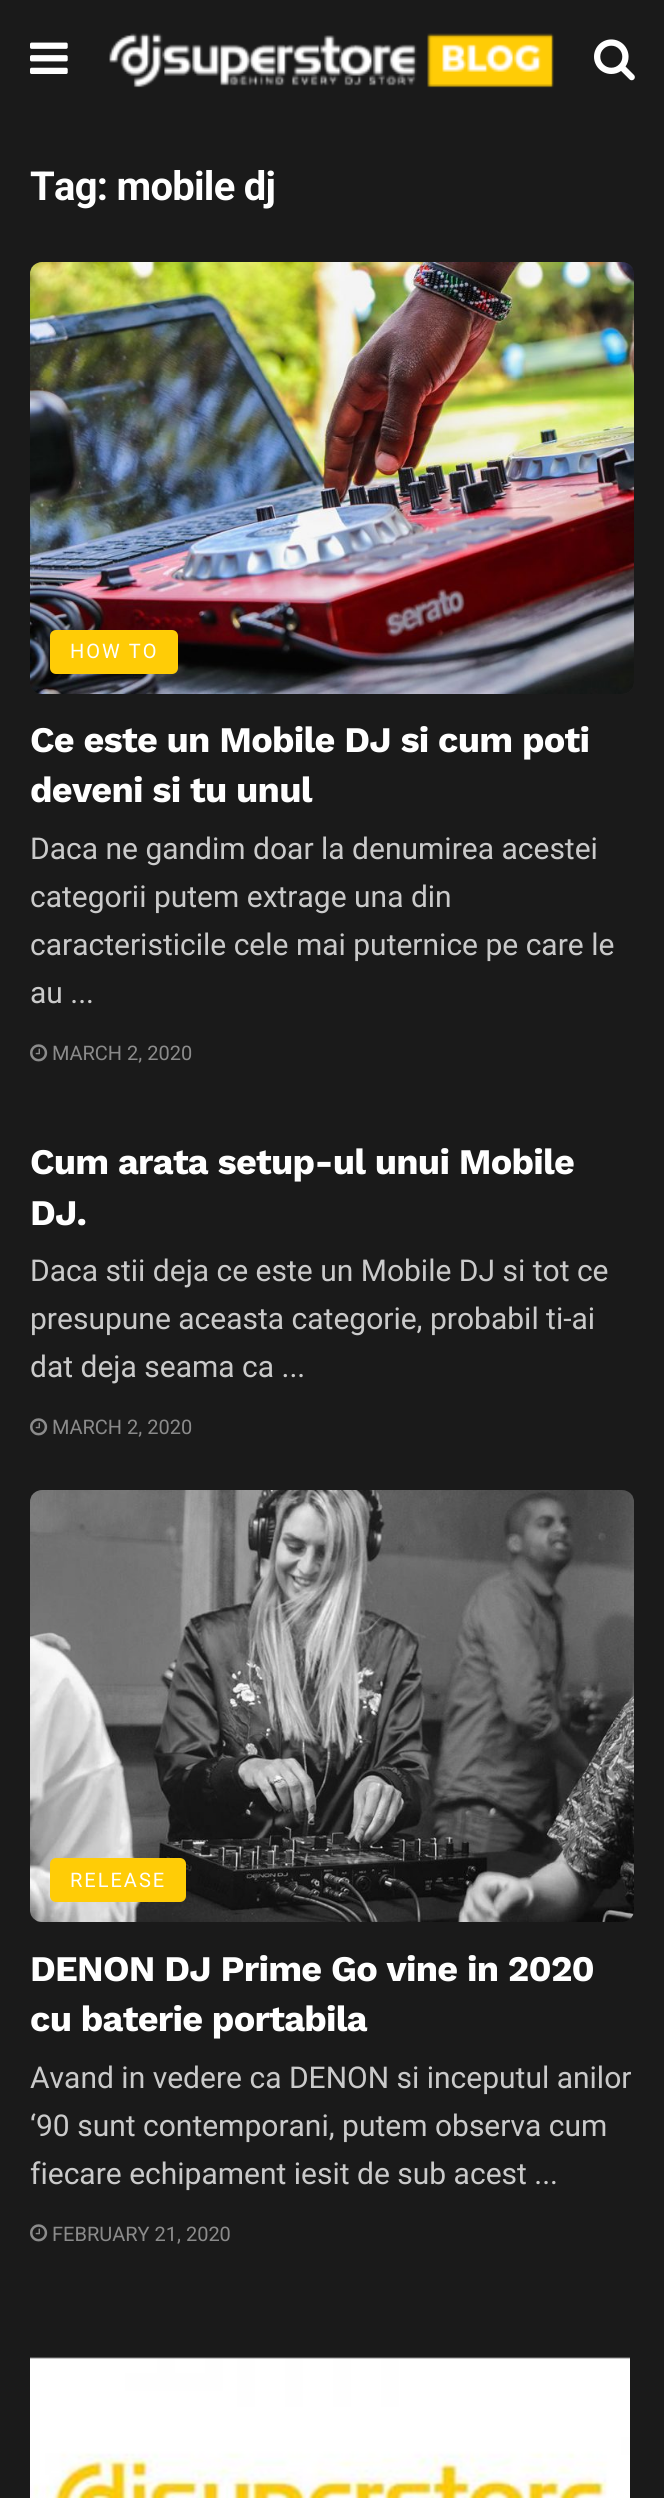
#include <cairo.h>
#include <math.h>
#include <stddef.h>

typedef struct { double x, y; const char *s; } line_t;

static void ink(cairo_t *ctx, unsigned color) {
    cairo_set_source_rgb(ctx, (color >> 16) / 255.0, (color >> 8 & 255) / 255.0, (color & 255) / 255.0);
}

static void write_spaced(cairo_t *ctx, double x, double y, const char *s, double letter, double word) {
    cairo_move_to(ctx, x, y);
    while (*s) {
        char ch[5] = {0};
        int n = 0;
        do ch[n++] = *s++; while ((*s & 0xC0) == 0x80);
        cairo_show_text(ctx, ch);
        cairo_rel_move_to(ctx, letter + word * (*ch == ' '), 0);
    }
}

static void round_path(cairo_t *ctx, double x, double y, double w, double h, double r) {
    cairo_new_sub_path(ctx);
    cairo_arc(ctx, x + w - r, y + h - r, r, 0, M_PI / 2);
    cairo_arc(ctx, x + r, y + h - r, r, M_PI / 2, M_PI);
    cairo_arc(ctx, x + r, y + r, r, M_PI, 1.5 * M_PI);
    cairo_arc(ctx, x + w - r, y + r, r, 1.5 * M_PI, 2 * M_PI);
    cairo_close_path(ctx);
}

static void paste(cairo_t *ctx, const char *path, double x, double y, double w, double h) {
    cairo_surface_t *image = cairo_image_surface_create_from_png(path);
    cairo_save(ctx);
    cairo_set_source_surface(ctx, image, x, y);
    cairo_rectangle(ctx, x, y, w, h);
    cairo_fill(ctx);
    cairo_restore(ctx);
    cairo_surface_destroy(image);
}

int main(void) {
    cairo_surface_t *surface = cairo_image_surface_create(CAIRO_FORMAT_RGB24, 664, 2498);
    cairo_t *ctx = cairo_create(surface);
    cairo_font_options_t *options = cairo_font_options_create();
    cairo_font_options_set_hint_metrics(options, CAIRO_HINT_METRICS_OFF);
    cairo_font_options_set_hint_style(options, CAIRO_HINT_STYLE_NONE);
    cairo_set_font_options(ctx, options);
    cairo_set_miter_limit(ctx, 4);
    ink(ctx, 0x1A1A1A);
    cairo_paint(ctx);
    paste(ctx, "media/1.png", 30, 42, 38, 32);
    paste(ctx, "media/2.png", 109, 33, 445, 55);
    paste(ctx, "media/3.png", 594, 39, 41, 42);
    cairo_select_font_face(ctx, "Roboto", CAIRO_FONT_SLANT_NORMAL, CAIRO_FONT_WEIGHT_BOLD);
    cairo_set_font_size(ctx, 40);
    ink(ctx, 0xFFFFFF);
    write_spaced(ctx, 30, 200, "Tag: mobile dj", -0.75, 0);
    paste(ctx, "media/4.png", 30, 262, 604, 432);
    paste(ctx, "media/5.png", 30, 262, 604, 432);
    ink(ctx, 0xFFCC06);
    round_path(ctx, 50, 630, 128, 44, 6);
    cairo_fill(ctx);
    cairo_select_font_face(ctx, "Roboto", CAIRO_FONT_SLANT_NORMAL, CAIRO_FONT_WEIGHT_NORMAL);
    cairo_set_font_size(ctx, 20);
    ink(ctx, 0xFFFFFF);
    write_spaced(ctx, 70, 658, "HOW TO", 2, 0);
    cairo_select_font_face(ctx, "Work Sans", CAIRO_FONT_SLANT_NORMAL, CAIRO_FONT_WEIGHT_BOLD);
    cairo_set_font_size(ctx, 36);
    write_spaced(ctx, 30, 752, "Ce este un Mobile DJ si cum poti", -0.75, 0);
    write_spaced(ctx, 30, 802, "deveni si tu unul", -0.75, 0);
    cairo_select_font_face(ctx, "Roboto", CAIRO_FONT_SLANT_NORMAL, CAIRO_FONT_WEIGHT_NORMAL);
    cairo_set_font_size(ctx, 30);
    ink(ctx, 0xCACACA);
    {
        static const line_t items[] = {
            {30, 859, "Daca ne gandim doar la denumirea acestei"},
            {30, 907, "categorii putem extrage una din"},
            {30, 955, "caracteristicile cele mai puternice pe care le"},
            {30, 1003, "au ..."},
        };
        for (size_t i = 0; i < sizeof items / sizeof *items; i++) {
            cairo_move_to(ctx, items[i].x, items[i].y);
            cairo_show_text(ctx, items[i].s);
        }
    }
    paste(ctx, "media/6.png", 30, 1044, 18, 18);
    cairo_set_font_size(ctx, 20);
    ink(ctx, 0x8B8B8B);
    cairo_move_to(ctx, 52, 1060);
    cairo_show_text(ctx, "MARCH 2, 2020");
    cairo_select_font_face(ctx, "Work Sans", CAIRO_FONT_SLANT_NORMAL, CAIRO_FONT_WEIGHT_BOLD);
    cairo_set_font_size(ctx, 36);
    ink(ctx, 0xFFFFFF);
    write_spaced(ctx, 30, 1174, "Cum arata setup-ul unui Mobile", -0.75, 0);
    write_spaced(ctx, 30, 1225, "DJ.", -0.75, 0);
    cairo_select_font_face(ctx, "Roboto", CAIRO_FONT_SLANT_NORMAL, CAIRO_FONT_WEIGHT_NORMAL);
    cairo_set_font_size(ctx, 30);
    ink(ctx, 0xCACACA);
    {
        static const line_t items[] = {
            {30, 1281, "Daca stii deja ce este un Mobile DJ si tot ce"},
            {30, 1329, "presupune aceasta categorie, probabil ti-ai"},
            {30, 1377, "dat deja seama ca ..."},
        };
        for (size_t i = 0; i < sizeof items / sizeof *items; i++) {
            cairo_move_to(ctx, items[i].x, items[i].y);
            cairo_show_text(ctx, items[i].s);
        }
    }
    paste(ctx, "media/6.png", 30, 1418, 18, 18);
    cairo_set_font_size(ctx, 20);
    ink(ctx, 0x8B8B8B);
    cairo_move_to(ctx, 52, 1434);
    cairo_show_text(ctx, "MARCH 2, 2020");
    paste(ctx, "media/4.png", 30, 1490, 604, 432);
    paste(ctx, "media/7.png", 30, 1490, 604, 432);
    ink(ctx, 0xFFCC06);
    round_path(ctx, 50, 1858, 136, 44, 6);
    cairo_fill(ctx);
    ink(ctx, 0xFFFFFF);
    write_spaced(ctx, 70, 1887, "RELEASE", 2, 0);
    cairo_select_font_face(ctx, "Work Sans", CAIRO_FONT_SLANT_NORMAL, CAIRO_FONT_WEIGHT_BOLD);
    cairo_set_font_size(ctx, 36);
    write_spaced(ctx, 30, 1981, "DENON DJ Prime Go vine in 2020", -0.75, 0);
    write_spaced(ctx, 30, 2031, "cu baterie portabila", -0.75, 0);
    cairo_select_font_face(ctx, "Roboto", CAIRO_FONT_SLANT_NORMAL, CAIRO_FONT_WEIGHT_NORMAL);
    cairo_set_font_size(ctx, 30);
    ink(ctx, 0xCACACA);
    {
        static const line_t items[] = {
            {30, 2088, "Avand in vedere ca DENON si inceputul anilor"},
            {30, 2136, "‘90 sunt contemporani, putem observa cum"},
            {30, 2184, "fiecare echipament iesit de sub acest ..."},
        };
        for (size_t i = 0; i < sizeof items / sizeof *items; i++) {
            cairo_move_to(ctx, items[i].x, items[i].y);
            cairo_show_text(ctx, items[i].s);
        }
    }
    paste(ctx, "media/6.png", 30, 2224, 18, 18);
    cairo_set_font_size(ctx, 20);
    ink(ctx, 0x8B8B8B);
    cairo_move_to(ctx, 52, 2241);
    cairo_show_text(ctx, "FEBRUARY 21, 2020");
    paste(ctx, "media/8.png", 30, 2357, 600, 141);
    cairo_surface_write_to_png(surface, "image.png");
    cairo_font_options_destroy(options);
    cairo_destroy(ctx);
    cairo_surface_destroy(surface);
    return 0;
}
